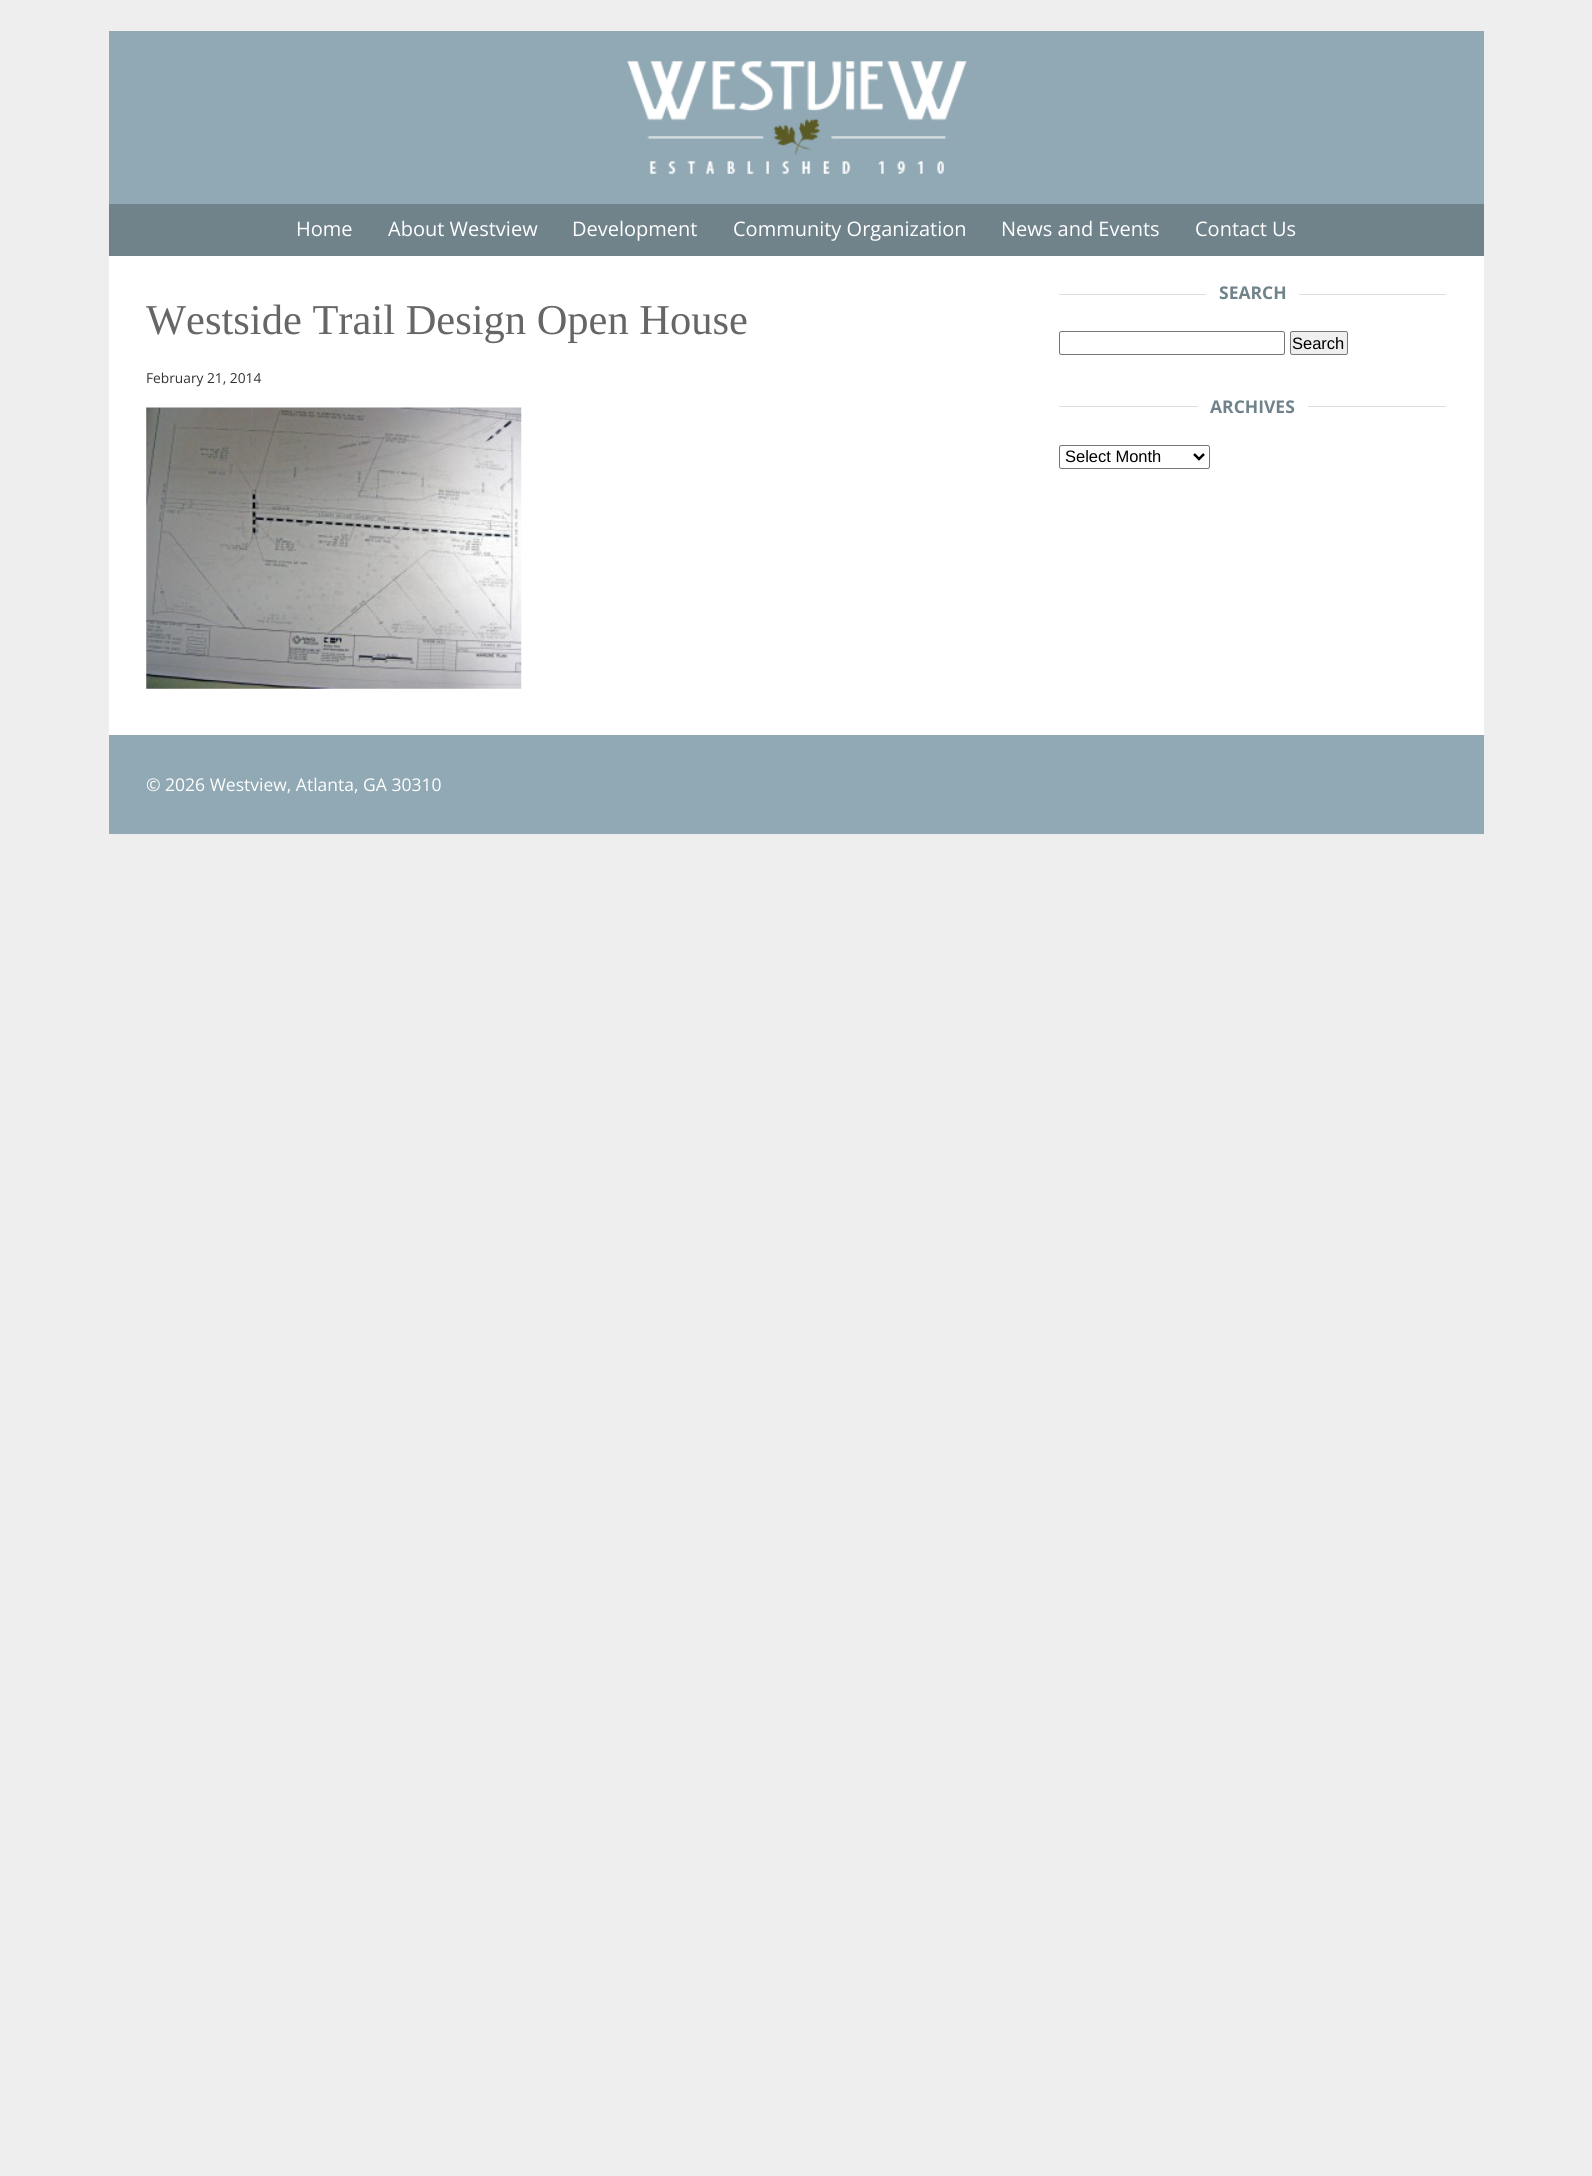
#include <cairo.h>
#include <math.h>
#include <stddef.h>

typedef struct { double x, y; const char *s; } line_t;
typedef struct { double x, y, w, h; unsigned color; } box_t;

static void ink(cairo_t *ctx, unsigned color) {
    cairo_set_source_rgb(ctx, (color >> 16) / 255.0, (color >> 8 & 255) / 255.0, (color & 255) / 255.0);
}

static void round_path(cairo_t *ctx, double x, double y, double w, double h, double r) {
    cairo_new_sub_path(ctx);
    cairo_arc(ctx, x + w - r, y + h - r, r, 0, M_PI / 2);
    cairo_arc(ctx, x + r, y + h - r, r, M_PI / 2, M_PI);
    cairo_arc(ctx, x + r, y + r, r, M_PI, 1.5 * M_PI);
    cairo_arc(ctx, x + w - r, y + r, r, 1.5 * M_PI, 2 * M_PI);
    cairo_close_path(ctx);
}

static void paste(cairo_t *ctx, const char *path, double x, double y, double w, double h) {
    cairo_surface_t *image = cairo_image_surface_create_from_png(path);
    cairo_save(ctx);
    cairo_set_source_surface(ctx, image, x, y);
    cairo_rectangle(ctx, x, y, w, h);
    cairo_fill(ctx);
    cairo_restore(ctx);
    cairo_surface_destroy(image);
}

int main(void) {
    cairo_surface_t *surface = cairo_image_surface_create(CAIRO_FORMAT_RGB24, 1592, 2176);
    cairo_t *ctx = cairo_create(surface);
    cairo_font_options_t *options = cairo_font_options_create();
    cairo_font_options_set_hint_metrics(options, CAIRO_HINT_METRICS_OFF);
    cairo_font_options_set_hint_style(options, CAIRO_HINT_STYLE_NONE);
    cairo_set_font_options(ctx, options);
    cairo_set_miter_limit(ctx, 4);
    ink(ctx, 0xEEEEEE);
    cairo_paint(ctx);
    {
        static const box_t items[] = {
            {109, 256, 1375, 479, 0xFFFFFF},
            {109, 204, 1375, 52, 0x70838B},
            {109, 31, 1375, 173, 0x91A9B4},
        };
        for (size_t i = 0; i < sizeof items / sizeof *items; i++) {
            ink(ctx, items[i].color);
            cairo_rectangle(ctx, items[i].x, items[i].y, items[i].w, items[i].h);
            cairo_fill(ctx);
        }
    }
    paste(ctx, "media/1.png", 627, 61, 340, 113);
    cairo_select_font_face(ctx, "Open Sans", CAIRO_FONT_SLANT_NORMAL, CAIRO_FONT_WEIGHT_NORMAL);
    cairo_set_font_size(ctx, 20);
    ink(ctx, 0xFFFFFF);
    {
        static const line_t items[] = {
            {296, 236, "Home"},
            {388, 236, "About Westview"},
            {572, 236, "Development"},
            {733, 236, "Community Organization"},
            {1001, 236, "News and Events"},
            {1195, 236, "Contact Us"},
        };
        for (size_t i = 0; i < sizeof items / sizeof *items; i++) {
            cairo_move_to(ctx, items[i].x, items[i].y);
            cairo_show_text(ctx, items[i].s);
        }
    }
    cairo_select_font_face(ctx, "Liberation Serif", CAIRO_FONT_SLANT_NORMAL, CAIRO_FONT_WEIGHT_NORMAL);
    cairo_set_font_size(ctx, 42.5);
    ink(ctx, 0x666666);
    cairo_move_to(ctx, 146, 334);
    cairo_show_text(ctx, "Westside Trail Design Open House");
    cairo_select_font_face(ctx, "Open Sans", CAIRO_FONT_SLANT_NORMAL, CAIRO_FONT_WEIGHT_NORMAL);
    cairo_set_font_size(ctx, 13.75);
    ink(ctx, 0x333333);
    cairo_move_to(ctx, 146, 383);
    cairo_show_text(ctx, "February 21, 2014");
    paste(ctx, "media/2.png", 146, 407, 376, 282);
    ink(ctx, 0xDEDEDE);
    cairo_rectangle(ctx, 1059, 294, 387, 1);
    cairo_fill(ctx);
    ink(ctx, 0xFFFFFF);
    cairo_rectangle(ctx, 1206, 294, 93, 1);
    cairo_fill(ctx);
    cairo_select_font_face(ctx, "Open Sans", CAIRO_FONT_SLANT_NORMAL, CAIRO_FONT_WEIGHT_BOLD);
    cairo_set_font_size(ctx, 17.5);
    ink(ctx, 0x70838B);
    cairo_move_to(ctx, 1219, 299);
    cairo_show_text(ctx, "SEARCH");
    round_path(ctx, 1059.5, 331.5, 225, 23, 2);
    ink(ctx, 0x767676);
    cairo_set_line_width(ctx, 1);
    cairo_stroke(ctx);
    ink(ctx, 0xEFEFEF);
    round_path(ctx, 1290.5, 331.5, 57, 23, 2);
    cairo_fill_preserve(ctx);
    ink(ctx, 0x767676);
    cairo_stroke(ctx);
    cairo_select_font_face(ctx, "Liberation Sans", CAIRO_FONT_SLANT_NORMAL, CAIRO_FONT_WEIGHT_NORMAL);
    cairo_set_font_size(ctx, 16.5);
    ink(ctx, 0x000000);
    cairo_move_to(ctx, 1292, 349);
    cairo_show_text(ctx, "Search");
    ink(ctx, 0xDEDEDE);
    cairo_rectangle(ctx, 1059, 406, 387, 1);
    cairo_fill(ctx);
    ink(ctx, 0xFFFFFF);
    cairo_rectangle(ctx, 1198, 406, 110, 1);
    cairo_fill(ctx);
    cairo_select_font_face(ctx, "Open Sans", CAIRO_FONT_SLANT_NORMAL, CAIRO_FONT_WEIGHT_BOLD);
    cairo_set_font_size(ctx, 17.5);
    ink(ctx, 0x70838B);
    cairo_move_to(ctx, 1210, 413);
    cairo_show_text(ctx, "ARCHIVES");
    round_path(ctx, 1059.5, 445.5, 150, 23, 2);
    ink(ctx, 0x767676);
    cairo_stroke(ctx);
    cairo_new_path(ctx);
    cairo_move_to(ctx, 1194, 454);
    cairo_line_to(ctx, 1199, 459);
    cairo_line_to(ctx, 1204, 454);
    ink(ctx, 0x000000);
    cairo_set_line_width(ctx, 2.5);
    cairo_stroke(ctx);
    cairo_select_font_face(ctx, "Liberation Sans", CAIRO_FONT_SLANT_NORMAL, CAIRO_FONT_WEIGHT_NORMAL);
    cairo_set_font_size(ctx, 16.5);
    cairo_move_to(ctx, 1065, 462);
    cairo_show_text(ctx, "Select Month");
    ink(ctx, 0x91A9B4);
    cairo_rectangle(ctx, 109, 735, 1375, 99);
    cairo_fill(ctx);
    cairo_select_font_face(ctx, "Open Sans", CAIRO_FONT_SLANT_NORMAL, CAIRO_FONT_WEIGHT_NORMAL);
    cairo_set_font_size(ctx, 17.5);
    ink(ctx, 0xFFFFFF);
    cairo_move_to(ctx, 146, 791);
    cairo_show_text(ctx, "© 2026 Westview, Atlanta, GA 30310");
    cairo_surface_write_to_png(surface, "image.png");
    cairo_font_options_destroy(options);
    cairo_destroy(ctx);
    cairo_surface_destroy(surface);
    return 0;
}
